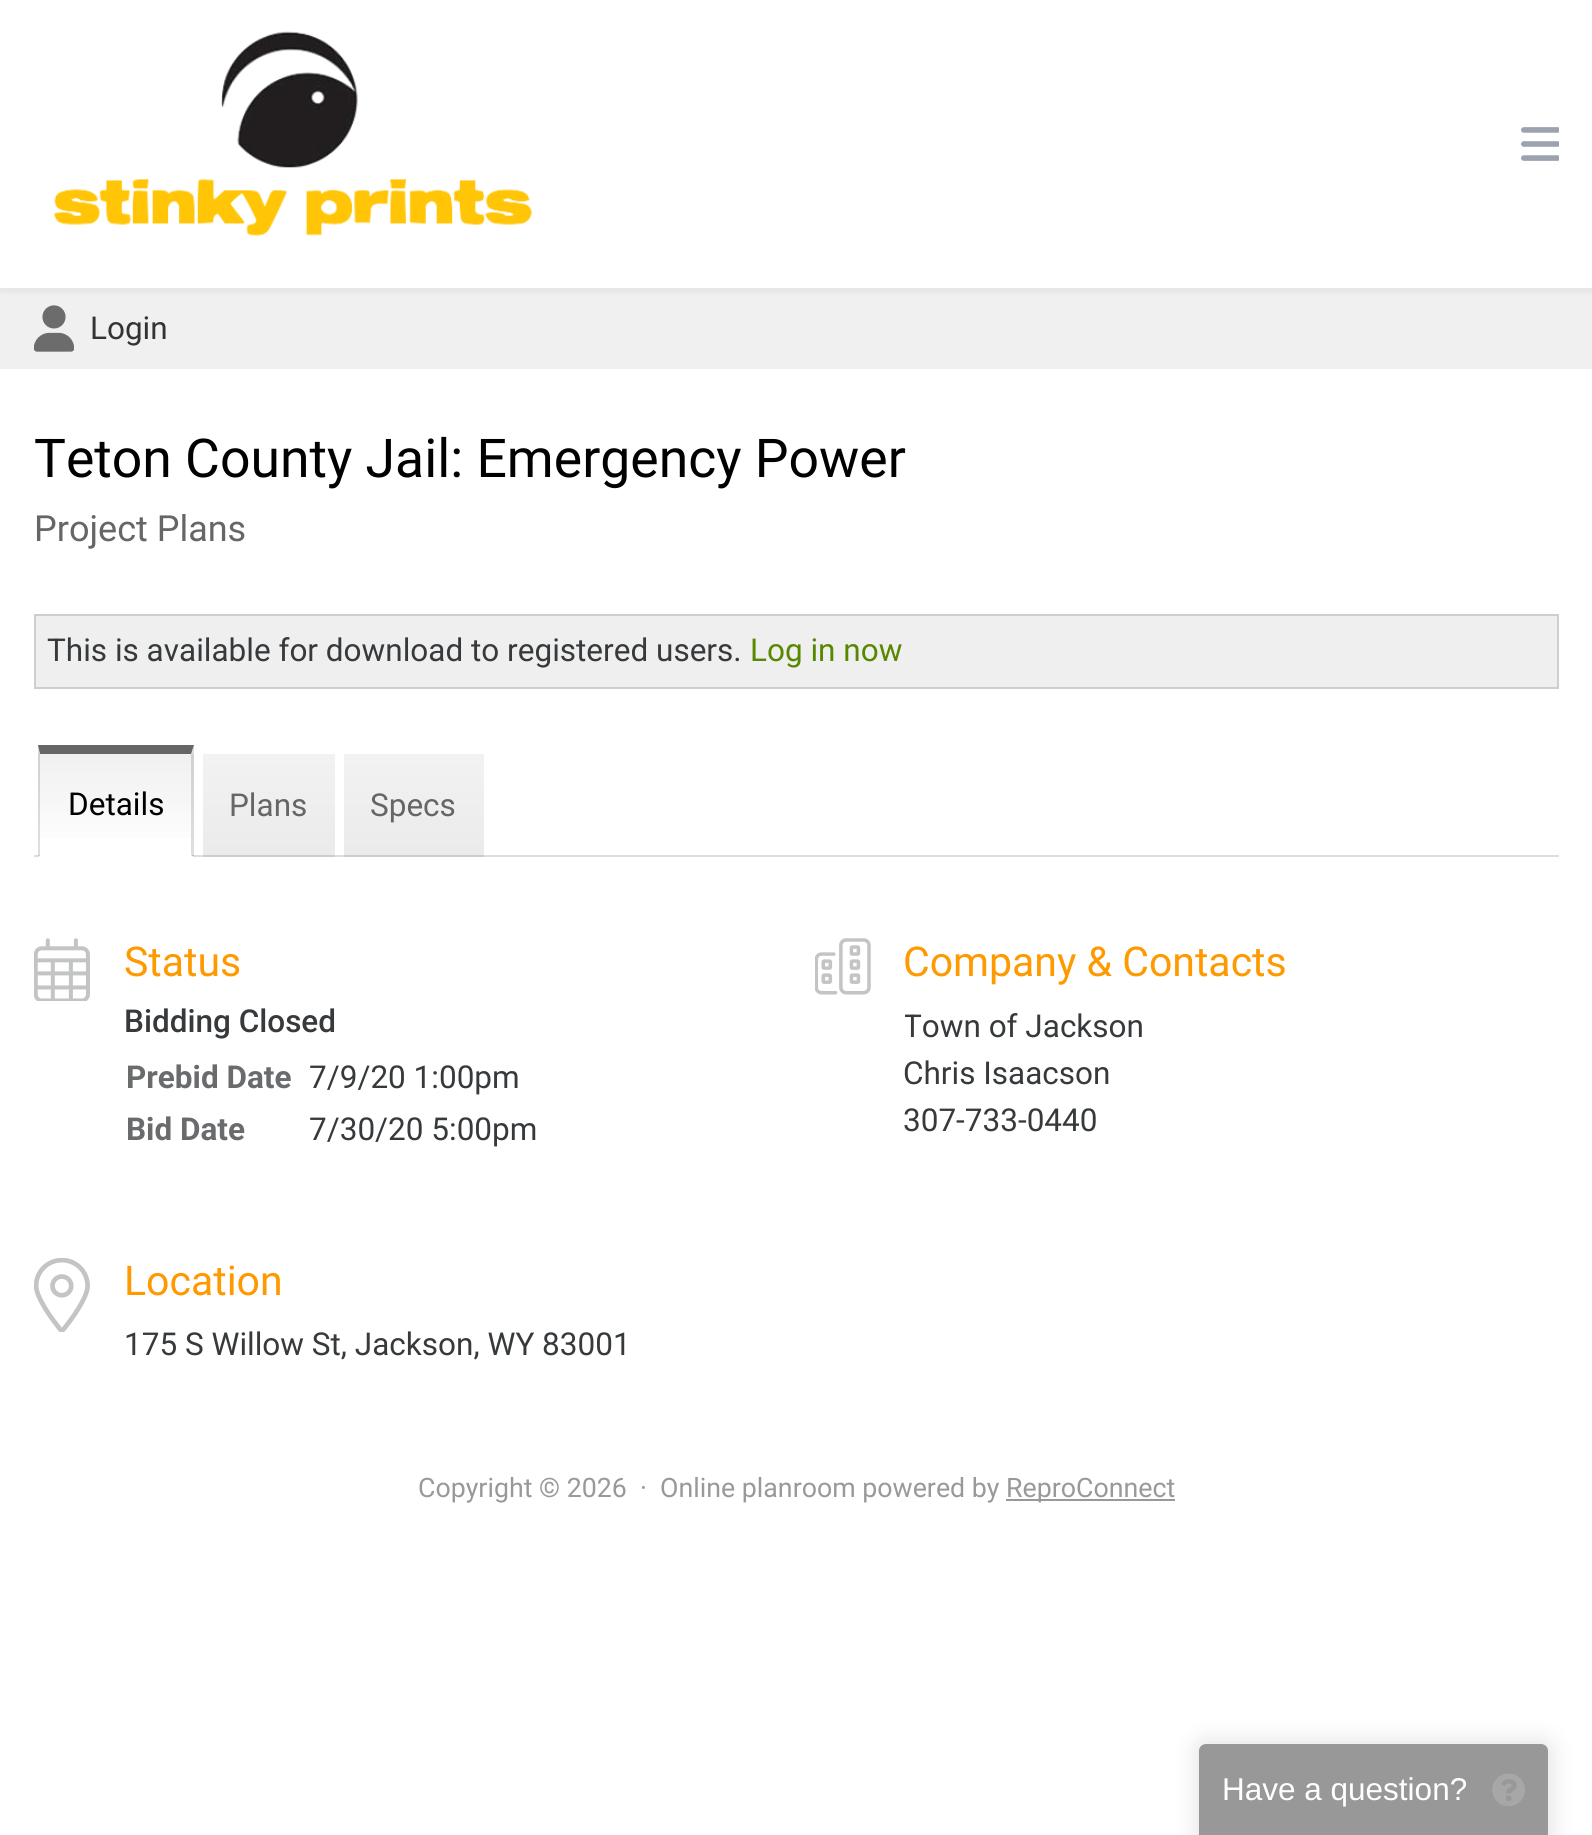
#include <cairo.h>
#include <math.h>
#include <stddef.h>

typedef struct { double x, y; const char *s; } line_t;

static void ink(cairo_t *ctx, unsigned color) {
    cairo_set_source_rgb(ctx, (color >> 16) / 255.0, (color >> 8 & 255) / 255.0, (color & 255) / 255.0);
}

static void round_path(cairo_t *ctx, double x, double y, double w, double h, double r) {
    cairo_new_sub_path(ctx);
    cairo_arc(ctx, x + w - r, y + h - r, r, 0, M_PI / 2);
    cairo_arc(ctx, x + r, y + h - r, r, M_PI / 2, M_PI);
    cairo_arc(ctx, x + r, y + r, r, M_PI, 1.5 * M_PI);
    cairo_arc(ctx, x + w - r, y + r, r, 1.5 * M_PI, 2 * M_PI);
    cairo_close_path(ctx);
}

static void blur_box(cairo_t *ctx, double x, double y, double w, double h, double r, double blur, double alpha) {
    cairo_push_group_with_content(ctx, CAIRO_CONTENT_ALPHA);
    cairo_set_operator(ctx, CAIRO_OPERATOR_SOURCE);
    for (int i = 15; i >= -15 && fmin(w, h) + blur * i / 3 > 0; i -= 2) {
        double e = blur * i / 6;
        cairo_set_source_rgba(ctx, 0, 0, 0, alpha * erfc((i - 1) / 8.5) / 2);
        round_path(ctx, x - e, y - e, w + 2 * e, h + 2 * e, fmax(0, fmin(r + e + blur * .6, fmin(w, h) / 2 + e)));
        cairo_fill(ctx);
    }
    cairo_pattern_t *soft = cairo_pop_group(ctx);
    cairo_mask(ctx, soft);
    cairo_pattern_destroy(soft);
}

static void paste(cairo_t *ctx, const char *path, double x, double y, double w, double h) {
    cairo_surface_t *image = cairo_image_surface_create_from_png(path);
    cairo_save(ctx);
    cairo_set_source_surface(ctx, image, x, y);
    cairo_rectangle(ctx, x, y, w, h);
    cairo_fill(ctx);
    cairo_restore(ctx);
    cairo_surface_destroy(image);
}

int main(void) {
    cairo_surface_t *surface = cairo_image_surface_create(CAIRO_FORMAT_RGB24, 1592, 1835);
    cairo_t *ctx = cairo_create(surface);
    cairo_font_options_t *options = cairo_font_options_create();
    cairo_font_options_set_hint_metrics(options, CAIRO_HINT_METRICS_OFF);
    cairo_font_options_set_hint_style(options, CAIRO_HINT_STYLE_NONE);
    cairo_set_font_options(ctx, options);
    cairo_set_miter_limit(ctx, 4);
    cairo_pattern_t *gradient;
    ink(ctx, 0xFFFFFF);
    cairo_paint(ctx);
    ink(ctx, 0xF0F0F0);
    cairo_rectangle(ctx, 0, 288, 1592, 81);
    cairo_fill(ctx);
    paste(ctx, "media/3.png", 34, 305, 40, 47);
    cairo_save(ctx);
    cairo_rectangle(ctx, 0, 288, 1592, 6);
    cairo_clip(ctx);
    ink(ctx, 0x000000);
    blur_box(ctx, 0, 5, 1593, 288, 0, 4.5, 0.05);
    cairo_restore(ctx);
    paste(ctx, "media/1.png", 53, 31, 479, 205);
    paste(ctx, "media/2.png", 1521, 127, 38, 34);
    cairo_select_font_face(ctx, "Roboto", CAIRO_FONT_SLANT_NORMAL, CAIRO_FONT_WEIGHT_NORMAL);
    cairo_set_font_size(ctx, 31.5);
    ink(ctx, 0x333333);
    cairo_move_to(ctx, 90, 339);
    cairo_show_text(ctx, "Login");
    cairo_set_font_size(ctx, 53.5);
    ink(ctx, 0x000000);
    cairo_move_to(ctx, 34, 477);
    cairo_show_text(ctx, "Teton County Jail: Emergency Power");
    cairo_set_font_size(ctx, 36);
    ink(ctx, 0x666666);
    cairo_move_to(ctx, 34, 541);
    cairo_show_text(ctx, "Project Plans");
    ink(ctx, 0xEFEFEF);
    cairo_rectangle(ctx, 35, 615, 1523, 73);
    cairo_fill_preserve(ctx);
    ink(ctx, 0xCECECE);
    cairo_stroke(ctx);
    cairo_set_font_size(ctx, 31.5);
    ink(ctx, 0x373A3C);
    cairo_move_to(ctx, 47, 661);
    cairo_show_text(ctx, "This is available for download to registered users.");
    ink(ctx, 0x598700);
    cairo_move_to(ctx, 750, 661);
    cairo_show_text(ctx, "Log in now");
    ink(ctx, 0xDEDEDE);
    cairo_rectangle(ctx, 34, 855, 1525, 2);
    cairo_fill(ctx);
    gradient = cairo_pattern_create_linear(116, 754, 116, 855);
    cairo_pattern_add_color_stop_rgba(gradient, 0, 0.941, 0.941, 0.941, 1);
    cairo_pattern_add_color_stop_rgba(gradient, 1, 1, 1, 1, 1);
    cairo_set_source(ctx, gradient);
    cairo_pattern_destroy(gradient);
    cairo_rectangle(ctx, 38, 754, 156, 84);
    cairo_fill(ctx);
    gradient = cairo_pattern_create_linear(116, 855, 116, 956);
    cairo_pattern_add_color_stop_rgba(gradient, 0, 0.82, 0.82, 0.82, 1);
    cairo_pattern_add_color_stop_rgba(gradient, 1, 0.871, 0.871, 0.871, 1);
    cairo_set_source(ctx, gradient);
    cairo_pattern_destroy(gradient);
    cairo_rectangle(ctx, 38, 855, 156, 2);
    cairo_fill(ctx);
    ink(ctx, 0x666666);
    cairo_new_path(ctx);
    cairo_move_to(ctx, 38, 745);
    cairo_line_to(ctx, 194, 745);
    cairo_line_to(ctx, 191, 754);
    cairo_line_to(ctx, 40, 754);
    cairo_close_path(ctx);
    cairo_fill(ctx);
    cairo_set_source_rgba(ctx, 0, 0, 0, 0.13);
    cairo_new_path(ctx);
    cairo_move_to(ctx, 194, 745);
    cairo_line_to(ctx, 194, 857);
    cairo_line_to(ctx, 191, 855);
    cairo_line_to(ctx, 191, 754);
    cairo_close_path(ctx);
    cairo_fill(ctx);
    ink(ctx, 0xFFFFFF);
    cairo_new_path(ctx);
    cairo_move_to(ctx, 194, 857);
    cairo_line_to(ctx, 38, 857);
    cairo_line_to(ctx, 40, 855);
    cairo_line_to(ctx, 191, 855);
    cairo_close_path(ctx);
    cairo_fill(ctx);
    cairo_set_source_rgba(ctx, 0, 0, 0, 0.13);
    cairo_new_path(ctx);
    cairo_move_to(ctx, 38, 857);
    cairo_line_to(ctx, 38, 745);
    cairo_line_to(ctx, 40, 754);
    cairo_line_to(ctx, 40, 855);
    cairo_close_path(ctx);
    cairo_fill(ctx);
    ink(ctx, 0x000000);
    cairo_move_to(ctx, 68, 815);
    cairo_show_text(ctx, "Details");
    gradient = cairo_pattern_create_linear(269, 754, 269, 857);
    cairo_pattern_add_color_stop_rgba(gradient, 0, 0, 0, 0, 0.05);
    cairo_pattern_add_color_stop_rgba(gradient, 1, 0, 0, 0, 0.08);
    cairo_set_source(ctx, gradient);
    cairo_pattern_destroy(gradient);
    cairo_rectangle(ctx, 203, 754, 132, 103);
    cairo_fill(ctx);
    ink(ctx, 0x666666);
    cairo_move_to(ctx, 229, 816);
    cairo_show_text(ctx, "Plans");
    gradient = cairo_pattern_create_linear(414, 754, 414, 857);
    cairo_pattern_add_color_stop_rgba(gradient, 0, 0, 0, 0, 0.05);
    cairo_pattern_add_color_stop_rgba(gradient, 1, 0, 0, 0, 0.08);
    cairo_set_source(ctx, gradient);
    cairo_pattern_destroy(gradient);
    cairo_rectangle(ctx, 344, 754, 140, 103);
    cairo_fill(ctx);
    ink(ctx, 0x666666);
    cairo_move_to(ctx, 370, 816);
    cairo_show_text(ctx, "Specs");
    paste(ctx, "media/4.png", 34, 938, 56, 63);
    cairo_set_font_size(ctx, 41);
    ink(ctx, 0xFF9900);
    cairo_move_to(ctx, 124, 976);
    cairo_show_text(ctx, "Status");
    cairo_select_font_face(ctx, "Roboto Medium", CAIRO_FONT_SLANT_NORMAL, CAIRO_FONT_WEIGHT_NORMAL);
    cairo_set_font_size(ctx, 31.5);
    ink(ctx, 0x373A3C);
    cairo_move_to(ctx, 124, 1032);
    cairo_show_text(ctx, "Bidding Closed");
    cairo_select_font_face(ctx, "Roboto", CAIRO_FONT_SLANT_NORMAL, CAIRO_FONT_WEIGHT_BOLD);
    ink(ctx, 0x696B6D);
    cairo_move_to(ctx, 126, 1088);
    cairo_show_text(ctx, "Prebid Date");
    cairo_select_font_face(ctx, "Roboto", CAIRO_FONT_SLANT_NORMAL, CAIRO_FONT_WEIGHT_NORMAL);
    ink(ctx, 0x373A3C);
    cairo_move_to(ctx, 309, 1088);
    cairo_show_text(ctx, "7/9/20 1:00pm");
    cairo_select_font_face(ctx, "Roboto", CAIRO_FONT_SLANT_NORMAL, CAIRO_FONT_WEIGHT_BOLD);
    ink(ctx, 0x696B6D);
    cairo_move_to(ctx, 126, 1140);
    cairo_show_text(ctx, "Bid Date");
    cairo_select_font_face(ctx, "Roboto", CAIRO_FONT_SLANT_NORMAL, CAIRO_FONT_WEIGHT_NORMAL);
    ink(ctx, 0x373A3C);
    cairo_move_to(ctx, 309, 1140);
    cairo_show_text(ctx, "7/30/20 5:00pm");
    paste(ctx, "media/5.png", 815, 938, 56, 57);
    cairo_set_font_size(ctx, 41);
    ink(ctx, 0xFF9900);
    cairo_move_to(ctx, 903, 976);
    cairo_show_text(ctx, "Company & Contacts");
    cairo_save(ctx);
    cairo_rectangle(ctx, 905, 938, 654, 219);
    cairo_clip(ctx);
    cairo_set_font_size(ctx, 31.5);
    ink(ctx, 0x373A3C);
    cairo_move_to(ctx, 903, 1037);
    cairo_show_text(ctx, "Town of Jackson");
    cairo_restore(ctx);
    cairo_set_font_size(ctx, 31.5);
    ink(ctx, 0x373A3C);
    cairo_move_to(ctx, 903, 1084);
    cairo_show_text(ctx, "Chris Isaacson");
    cairo_move_to(ctx, 903, 1131);
    cairo_show_text(ctx, "307-733-0440");
    paste(ctx, "media/6.png", 34, 1258, 56, 74);
    cairo_set_font_size(ctx, 41);
    ink(ctx, 0xFF9900);
    cairo_move_to(ctx, 124, 1295);
    cairo_show_text(ctx, "Location");
    cairo_set_font_size(ctx, 31.5);
    ink(ctx, 0x373A3C);
    cairo_move_to(ctx, 124, 1355);
    cairo_show_text(ctx, "175 S Willow St, Jackson, WY 83001");
    cairo_set_font_size(ctx, 26.75);
    ink(ctx, 0x999999);
    {
        static const line_t items[] = {
            {418, 1497, "Copyright © 2026"},
            {640, 1497, "·"},
            {660, 1497, "Online planroom powered by"},
        };
        for (size_t i = 0; i < sizeof items / sizeof *items; i++) {
            cairo_move_to(ctx, items[i].x, items[i].y);
            cairo_show_text(ctx, items[i].s);
        }
    }
    cairo_rectangle(ctx, 1006, 1499, 169, 2);
    cairo_fill(ctx);
    cairo_move_to(ctx, 1006, 1497);
    cairo_show_text(ctx, "ReproConnect");
    cairo_save(ctx);
    cairo_set_fill_rule(ctx, CAIRO_FILL_RULE_EVEN_ODD);
    cairo_new_path(ctx);
    cairo_move_to(ctx, 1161, 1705);
    cairo_line_to(ctx, 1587, 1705);
    cairo_line_to(ctx, 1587, 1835);
    cairo_line_to(ctx, 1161, 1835);
    cairo_close_path(ctx);
    cairo_move_to(ctx, 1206, 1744);
    cairo_line_to(ctx, 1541, 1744);
    cairo_curve_to(ctx, 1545, 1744, 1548, 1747, 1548, 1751);
    cairo_line_to(ctx, 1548, 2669);
    cairo_line_to(ctx, 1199, 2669);
    cairo_line_to(ctx, 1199, 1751);
    cairo_curve_to(ctx, 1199, 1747, 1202, 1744, 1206, 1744);
    cairo_close_path(ctx);
    cairo_clip(ctx);
    ink(ctx, 0x000000);
    blur_box(ctx, 1195, 1739, 358, 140, 11, 11, 0.1);
    cairo_restore(ctx);
    cairo_set_source_rgba(ctx, 0.2, 0.2, 0.2, 0.5);
    cairo_new_path(ctx);
    cairo_move_to(ctx, 1206, 1744);
    cairo_line_to(ctx, 1541, 1744);
    cairo_curve_to(ctx, 1545, 1744, 1548, 1747, 1548, 1751);
    cairo_line_to(ctx, 1548, 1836);
    cairo_line_to(ctx, 1199, 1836);
    cairo_line_to(ctx, 1199, 1751);
    cairo_curve_to(ctx, 1199, 1747, 1202, 1744, 1206, 1744);
    cairo_close_path(ctx);
    cairo_fill(ctx);
    cairo_select_font_face(ctx, "Liberation Sans", CAIRO_FONT_SLANT_NORMAL, CAIRO_FONT_WEIGHT_NORMAL);
    cairo_set_font_size(ctx, 31.5);
    ink(ctx, 0xFFFFFF);
    cairo_move_to(ctx, 1222, 1800);
    cairo_show_text(ctx, "Have a question?");
    paste(ctx, "media/7.png", 1492, 1773, 33, 33);
    cairo_surface_write_to_png(surface, "image.png");
    cairo_font_options_destroy(options);
    cairo_destroy(ctx);
    cairo_surface_destroy(surface);
    return 0;
}
